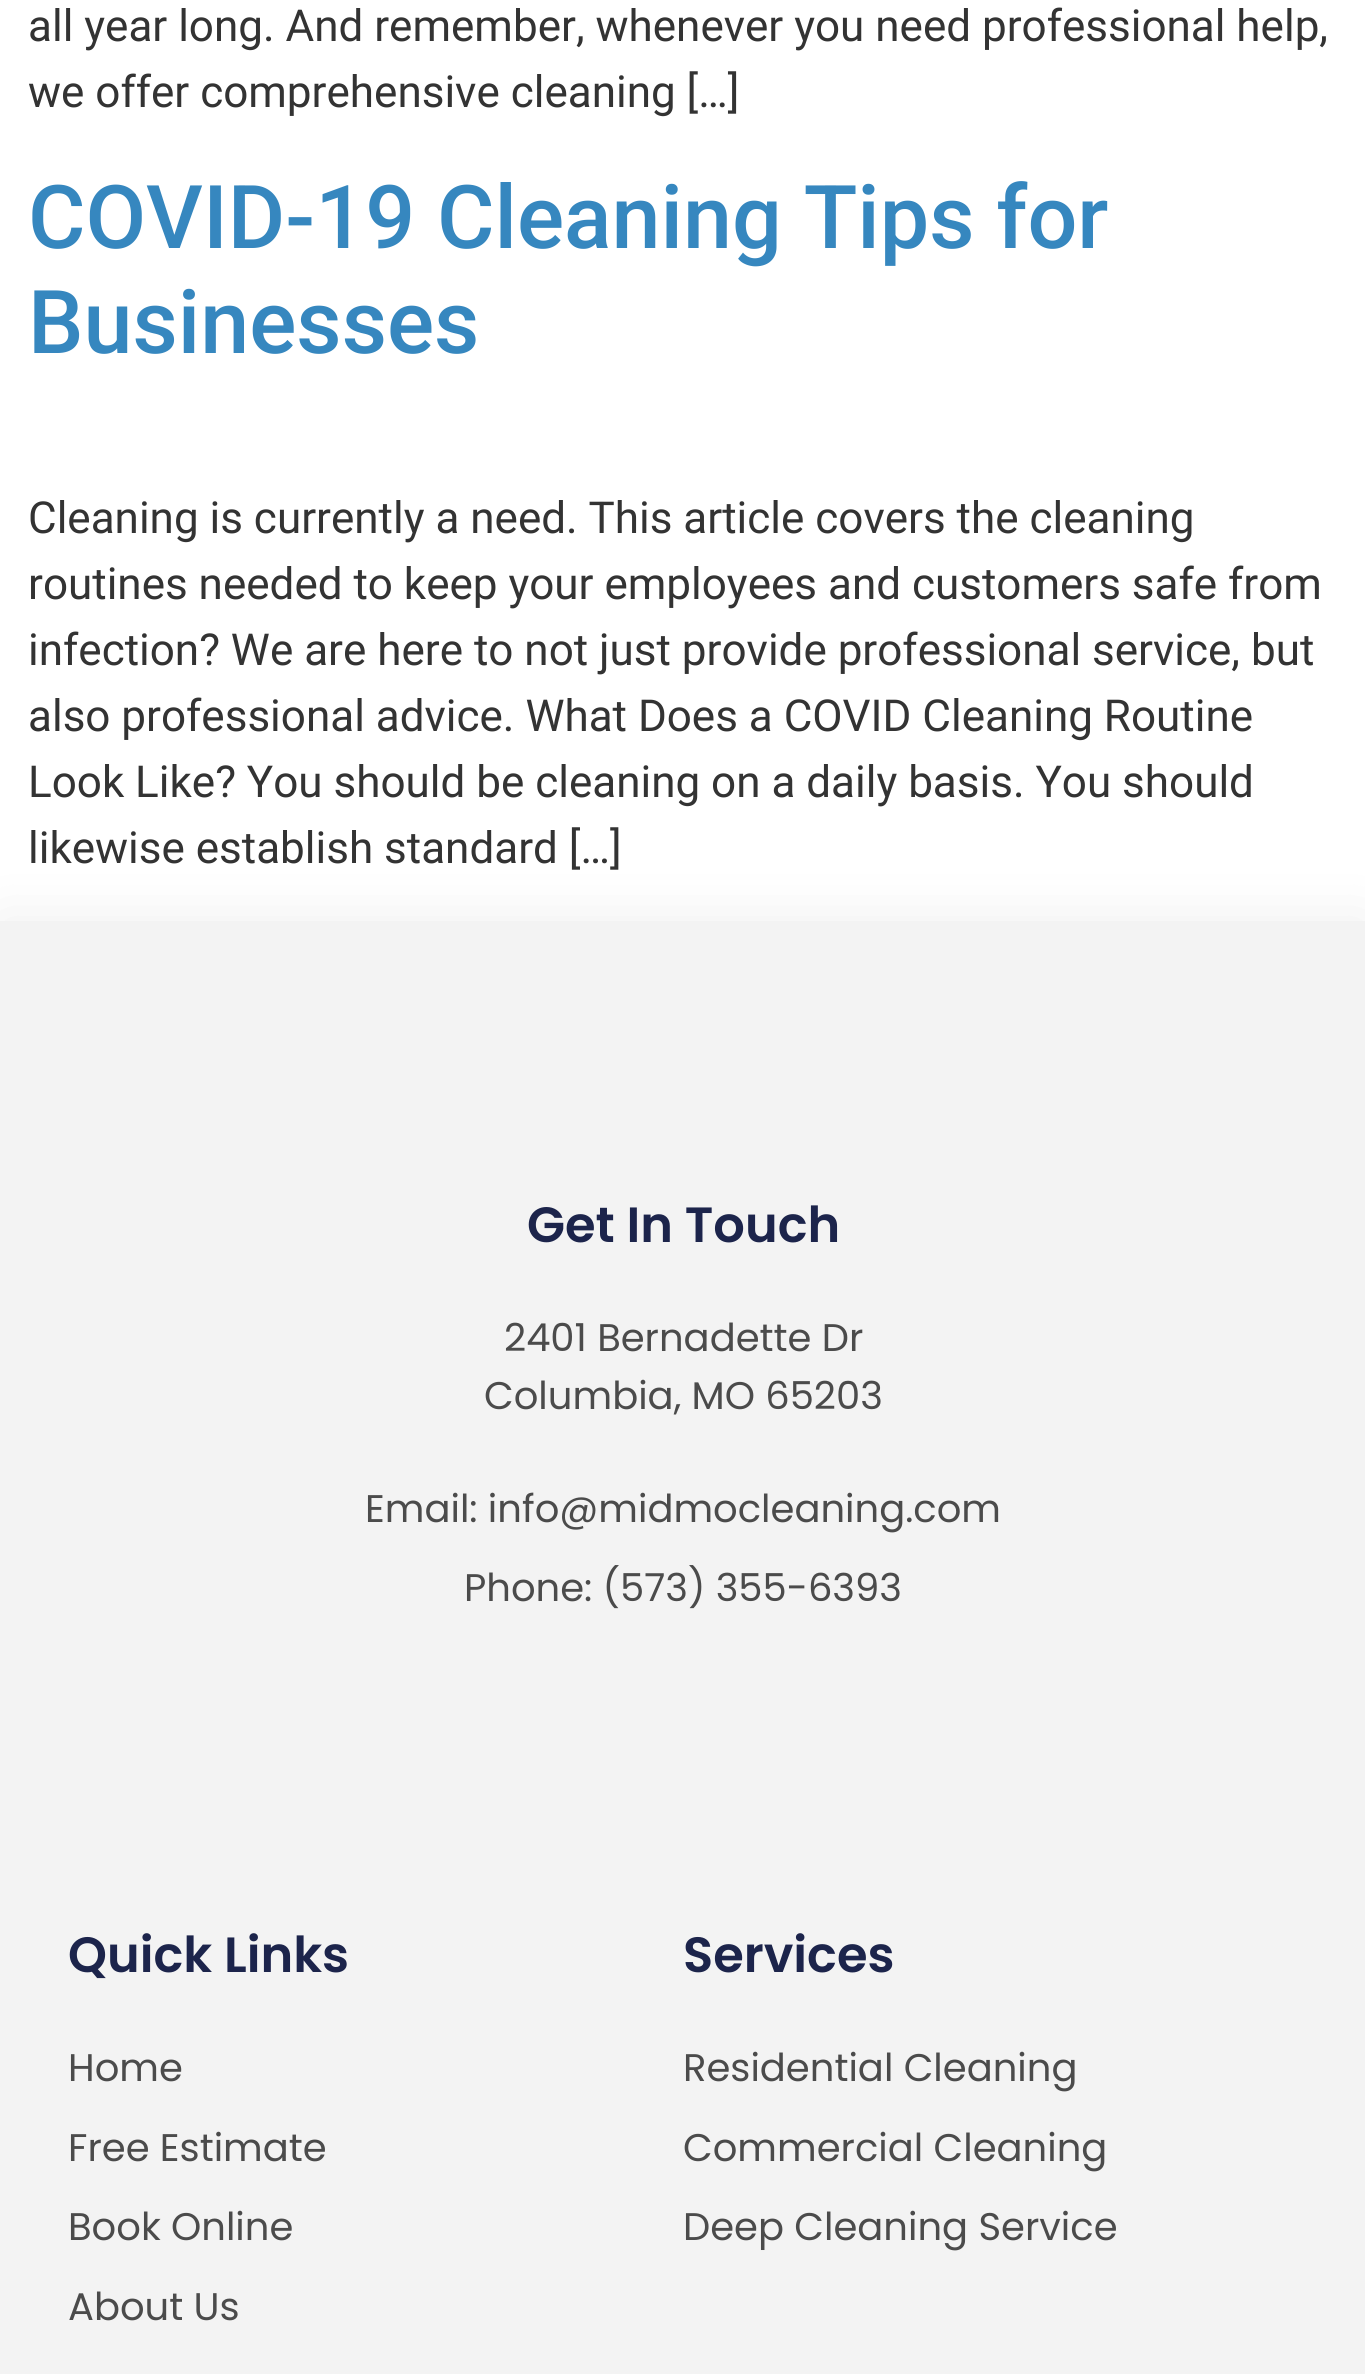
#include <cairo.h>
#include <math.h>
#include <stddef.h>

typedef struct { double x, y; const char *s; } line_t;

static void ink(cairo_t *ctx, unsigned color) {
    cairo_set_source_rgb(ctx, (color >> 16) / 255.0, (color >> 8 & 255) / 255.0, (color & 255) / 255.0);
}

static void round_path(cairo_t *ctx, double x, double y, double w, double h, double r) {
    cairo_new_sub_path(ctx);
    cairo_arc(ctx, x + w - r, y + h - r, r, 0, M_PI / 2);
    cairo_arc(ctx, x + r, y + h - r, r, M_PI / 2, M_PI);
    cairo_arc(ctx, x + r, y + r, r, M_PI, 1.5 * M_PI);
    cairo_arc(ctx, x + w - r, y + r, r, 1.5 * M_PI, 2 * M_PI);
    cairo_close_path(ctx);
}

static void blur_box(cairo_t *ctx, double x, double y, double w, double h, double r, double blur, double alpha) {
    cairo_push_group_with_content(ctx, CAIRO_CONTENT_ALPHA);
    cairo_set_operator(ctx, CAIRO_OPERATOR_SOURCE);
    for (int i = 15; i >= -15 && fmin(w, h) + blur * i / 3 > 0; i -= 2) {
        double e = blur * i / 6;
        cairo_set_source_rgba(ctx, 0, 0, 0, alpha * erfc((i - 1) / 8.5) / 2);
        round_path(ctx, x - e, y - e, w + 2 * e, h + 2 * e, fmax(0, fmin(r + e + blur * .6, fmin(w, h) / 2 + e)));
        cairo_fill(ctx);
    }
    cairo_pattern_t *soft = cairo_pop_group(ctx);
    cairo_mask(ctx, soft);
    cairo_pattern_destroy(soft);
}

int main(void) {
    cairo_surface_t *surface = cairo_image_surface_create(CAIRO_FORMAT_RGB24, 1365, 2374);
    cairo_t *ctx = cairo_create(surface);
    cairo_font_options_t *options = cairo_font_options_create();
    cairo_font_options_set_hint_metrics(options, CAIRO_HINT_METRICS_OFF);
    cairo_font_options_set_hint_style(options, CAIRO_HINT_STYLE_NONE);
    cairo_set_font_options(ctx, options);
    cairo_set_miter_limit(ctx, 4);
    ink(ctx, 0xFFFFFF);
    cairo_paint(ctx);
    cairo_select_font_face(ctx, "Roboto", CAIRO_FONT_SLANT_NORMAL, CAIRO_FONT_WEIGHT_NORMAL);
    cairo_set_font_size(ctx, 44);
    ink(ctx, 0x333333);
    cairo_move_to(ctx, 28, 41);
    cairo_show_text(ctx, "all year long. And remember, whenever you need professional help,");
    cairo_move_to(ctx, 28, 107);
    cairo_show_text(ctx, "we offer comprehensive cleaning […]");
    cairo_select_font_face(ctx, "Roboto Medium", CAIRO_FONT_SLANT_NORMAL, CAIRO_FONT_WEIGHT_NORMAL);
    cairo_set_font_size(ctx, 88);
    ink(ctx, 0x3687BF);
    cairo_move_to(ctx, 28, 248);
    cairo_show_text(ctx, "COVID-19 Cleaning Tips for");
    cairo_move_to(ctx, 28, 353);
    cairo_show_text(ctx, "Businesses");
    cairo_select_font_face(ctx, "Roboto", CAIRO_FONT_SLANT_NORMAL, CAIRO_FONT_WEIGHT_NORMAL);
    cairo_set_font_size(ctx, 44);
    ink(ctx, 0x333333);
    {
        static const line_t items[] = {
            {28, 533, "Cleaning is currently a need. This article covers the cleaning"},
            {28, 599, "routines needed to keep your employees and customers safe from"},
            {28, 665, "infection? We are here to not just provide professional service, but"},
            {28, 731, "also professional advice. What Does a COVID Cleaning Routine"},
            {28, 797, "Look Like? You should be cleaning on a daily basis. You should"},
            {28, 863, "likewise establish standard […]"},
        };
        for (size_t i = 0; i < sizeof items / sizeof *items; i++) {
            cairo_move_to(ctx, items[i].x, items[i].y);
            cairo_show_text(ctx, items[i].s);
        }
    }
    ink(ctx, 0x000000);
    blur_box(ctx, 0, 921, 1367, 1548, 0, 31.5, 0.07);
    ink(ctx, 0xF3F3F3);
    cairo_rectangle(ctx, 0, 921, 1365, 1453);
    cairo_fill(ctx);
    cairo_select_font_face(ctx, "Poppins SemiBold", CAIRO_FONT_SLANT_NORMAL, CAIRO_FONT_WEIGHT_NORMAL);
    cairo_set_font_size(ctx, 49.5);
    ink(ctx, 0x1C244B);
    cairo_move_to(ctx, 527, 1242);
    cairo_show_text(ctx, "Get In Touch");
    cairo_select_font_face(ctx, "Poppins", CAIRO_FONT_SLANT_NORMAL, CAIRO_FONT_WEIGHT_NORMAL);
    cairo_set_font_size(ctx, 38.5);
    ink(ctx, 0x4B4B4B);
    {
        static const line_t items[] = {
            {504, 1351, "2401 Bernadette Dr"},
            {484, 1409, "Columbia, MO 65203"},
            {365, 1522, "Email: info@midmocleaning.com"},
            {464, 1601, "Phone: (573) 355-6393"},
        };
        for (size_t i = 0; i < sizeof items / sizeof *items; i++) {
            cairo_move_to(ctx, items[i].x, items[i].y);
            cairo_show_text(ctx, items[i].s);
        }
    }
    cairo_select_font_face(ctx, "Poppins SemiBold", CAIRO_FONT_SLANT_NORMAL, CAIRO_FONT_WEIGHT_NORMAL);
    cairo_set_font_size(ctx, 49.5);
    ink(ctx, 0x1C244B);
    cairo_move_to(ctx, 68, 1972);
    cairo_show_text(ctx, "Quick Links");
    cairo_select_font_face(ctx, "Poppins", CAIRO_FONT_SLANT_NORMAL, CAIRO_FONT_WEIGHT_NORMAL);
    cairo_set_font_size(ctx, 38.5);
    ink(ctx, 0x4B4B4B);
    {
        static const line_t items[] = {
            {68, 2081, "Home"},
            {68, 2161, "Free Estimate"},
            {68, 2240, "Book Online"},
            {68, 2320, "About Us"},
        };
        for (size_t i = 0; i < sizeof items / sizeof *items; i++) {
            cairo_move_to(ctx, items[i].x, items[i].y);
            cairo_show_text(ctx, items[i].s);
        }
    }
    cairo_select_font_face(ctx, "Poppins SemiBold", CAIRO_FONT_SLANT_NORMAL, CAIRO_FONT_WEIGHT_NORMAL);
    cairo_set_font_size(ctx, 49.5);
    ink(ctx, 0x1C244B);
    cairo_move_to(ctx, 683, 1972);
    cairo_show_text(ctx, "Services");
    cairo_select_font_face(ctx, "Poppins", CAIRO_FONT_SLANT_NORMAL, CAIRO_FONT_WEIGHT_NORMAL);
    cairo_set_font_size(ctx, 38.5);
    ink(ctx, 0x4B4B4B);
    {
        static const line_t items[] = {
            {683, 2081, "Residential Cleaning"},
            {683, 2161, "Commercial Cleaning"},
            {683, 2240, "Deep Cleaning Service"},
        };
        for (size_t i = 0; i < sizeof items / sizeof *items; i++) {
            cairo_move_to(ctx, items[i].x, items[i].y);
            cairo_show_text(ctx, items[i].s);
        }
    }
    cairo_surface_write_to_png(surface, "image.png");
    cairo_font_options_destroy(options);
    cairo_destroy(ctx);
    cairo_surface_destroy(surface);
    return 0;
}
